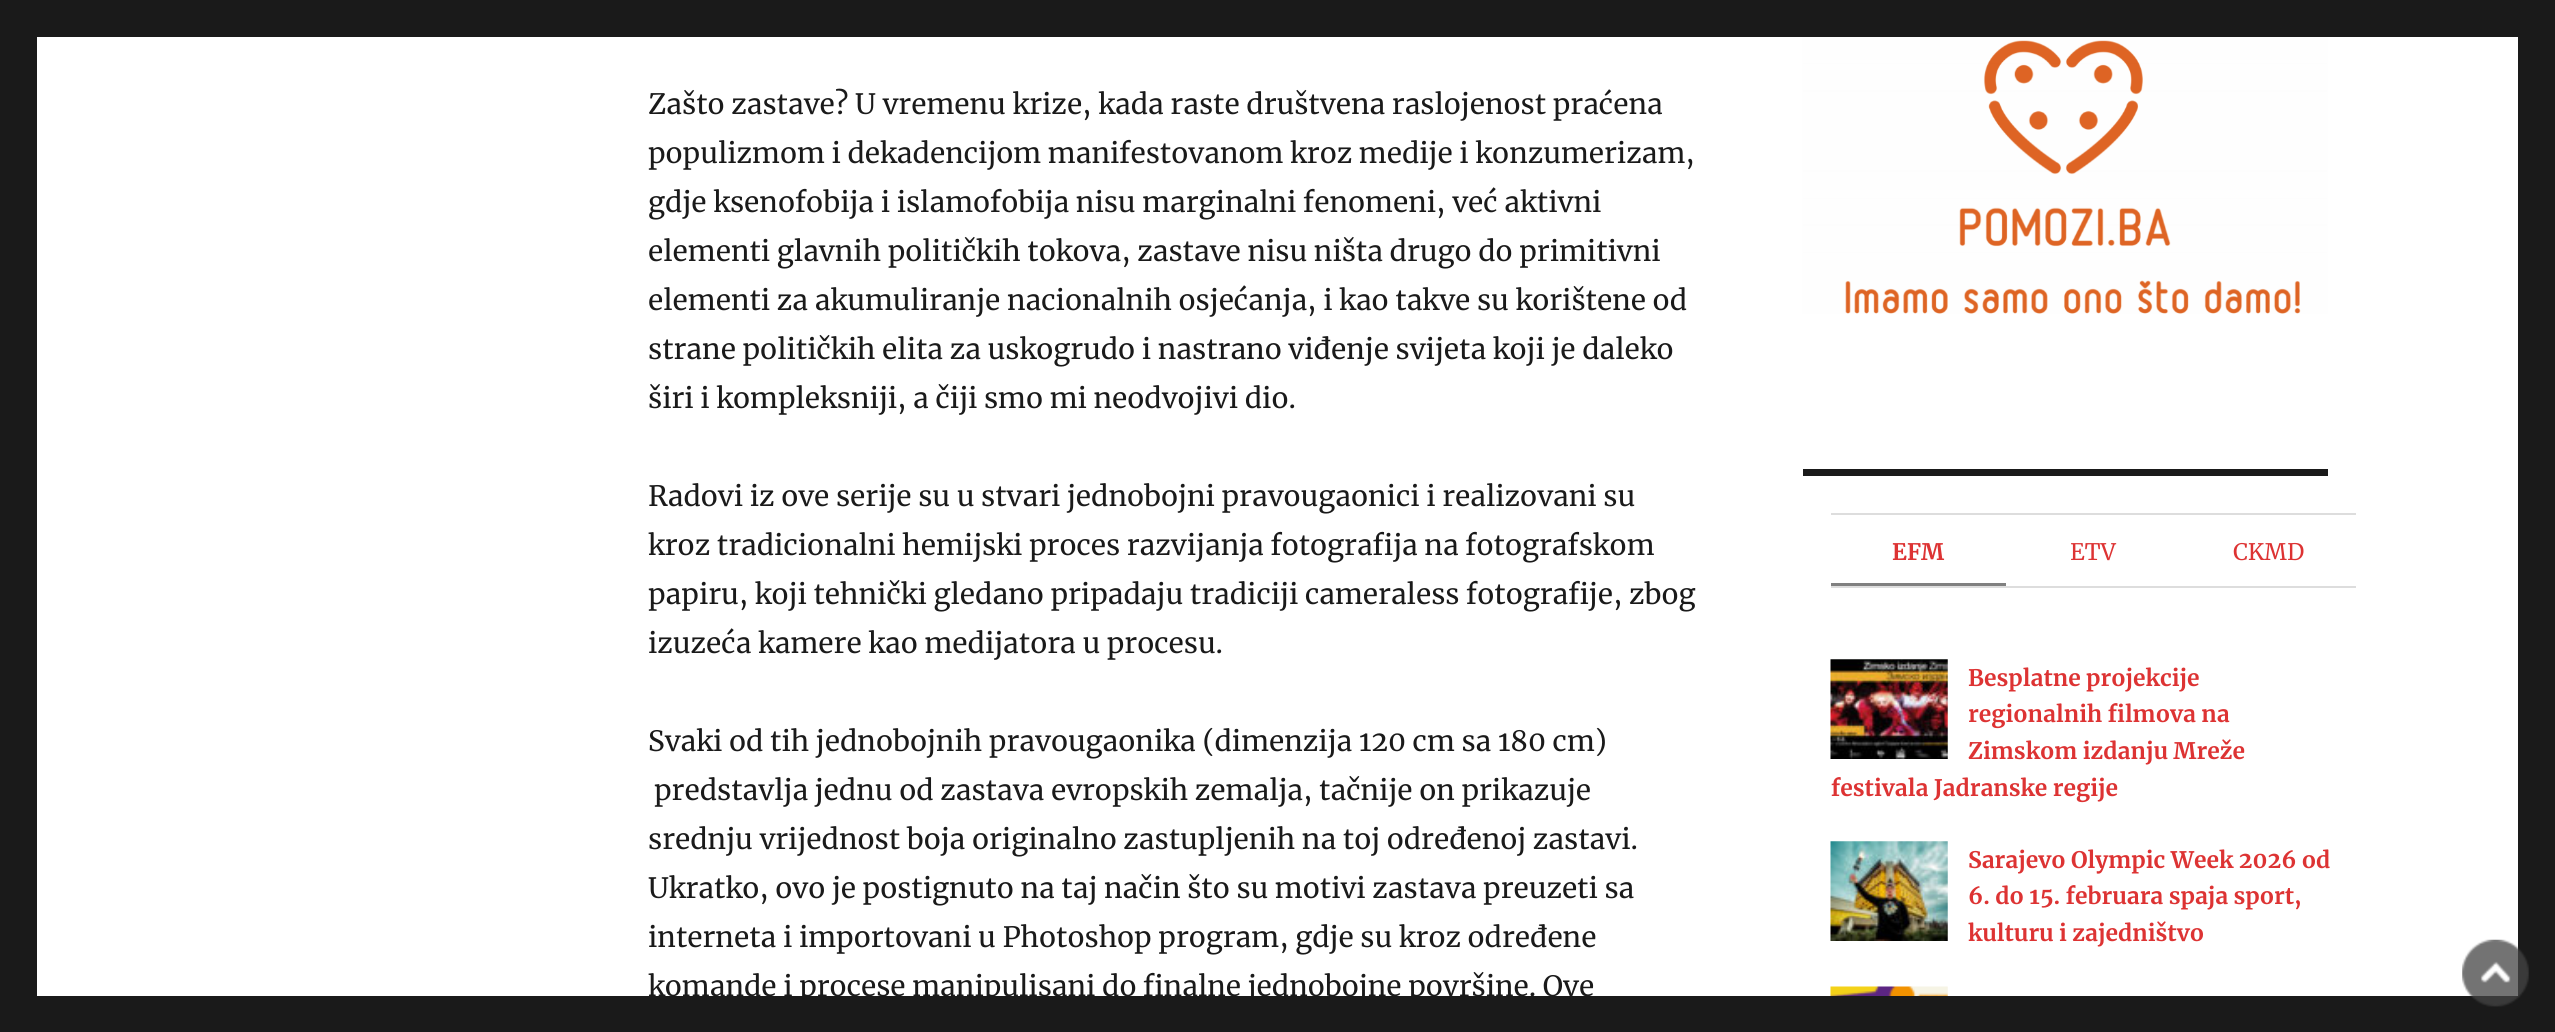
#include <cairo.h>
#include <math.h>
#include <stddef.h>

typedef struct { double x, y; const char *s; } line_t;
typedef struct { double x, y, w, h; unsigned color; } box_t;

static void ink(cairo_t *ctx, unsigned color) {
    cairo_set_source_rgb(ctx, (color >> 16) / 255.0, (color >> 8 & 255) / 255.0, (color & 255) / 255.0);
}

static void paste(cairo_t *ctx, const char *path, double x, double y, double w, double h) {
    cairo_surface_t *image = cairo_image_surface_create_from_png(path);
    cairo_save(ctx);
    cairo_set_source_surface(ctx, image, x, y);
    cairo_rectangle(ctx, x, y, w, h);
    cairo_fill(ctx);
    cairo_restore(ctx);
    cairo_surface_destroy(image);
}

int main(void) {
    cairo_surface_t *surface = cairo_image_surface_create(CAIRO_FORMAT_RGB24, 2555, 1032);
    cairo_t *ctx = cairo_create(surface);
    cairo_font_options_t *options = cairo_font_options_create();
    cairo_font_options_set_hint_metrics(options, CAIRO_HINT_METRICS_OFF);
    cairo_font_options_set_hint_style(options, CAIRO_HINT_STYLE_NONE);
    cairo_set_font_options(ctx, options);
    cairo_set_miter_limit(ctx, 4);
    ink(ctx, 0x1A1A1A);
    cairo_paint(ctx);
    ink(ctx, 0xFFFFFF);
    cairo_rectangle(ctx, 37, 37, 2481, 959);
    cairo_fill(ctx);
    cairo_select_font_face(ctx, "Merriweather", CAIRO_FONT_SLANT_NORMAL, CAIRO_FONT_WEIGHT_NORMAL);
    cairo_set_font_size(ctx, 28);
    ink(ctx, 0x1A1A1A);
    {
        static const line_t items[] = {
            {648, 114, "Zašto zastave? U vremenu krize, kada raste društvena raslojenost praćena"},
            {648, 163, "populizmom i dekadencijom manifestovanom kroz medije i konzumerizam,"},
            {648, 212, "gdje ksenofobija i islamofobija nisu marginalni fenomeni, već aktivni"},
            {648, 261, "elementi glavnih političkih tokova, zastave nisu ništa drugo do primitivni"},
            {648, 310, "elementi za akumuliranje nacionalnih osjećanja, i kao takve su korištene od"},
            {648, 359, "strane političkih elita za uskogrudo i nastrano viđenje svijeta koji je daleko"},
            {648, 408, "širi i kompleksniji, a čiji smo mi neodvojivi dio."},
            {648, 506, "Radovi iz ove serije su u stvari jednobojni pravougaonici i realizovani su"},
            {648, 555, "kroz tradicionalni hemijski proces razvijanja fotografija na fotografskom"},
            {648, 604, "papiru, koji tehnički gledano pripadaju tradiciji cameraless fotografije, zbog"},
            {648, 653, "izuzeća kamere kao medijatora u procesu."},
            {648, 751, "Svaki od tih jednobojnih pravougaonika (dimenzija 120 cm sa 180 cm)"},
            {654, 800, "predstavlja jednu od zastava evropskih zemalja, tačnije on prikazuje"},
            {648, 849, "srednju vrijednost boja originalno zastupljenih na toj određenoj zastavi."},
            {648, 898, "Ukratko, ovo je postignuto na taj način što su motivi zastava preuzeti sa"},
            {648, 947, "interneta i importovani u Photoshop program, gdje su kroz određene"},
            {648, 996, "komande i procese manipulisani do finalne jednobojne površine. Ove"},
        };
        for (size_t i = 0; i < sizeof items / sizeof *items; i++) {
            cairo_move_to(ctx, items[i].x, items[i].y);
            cairo_show_text(ctx, items[i].s);
        }
    }
    paste(ctx, "media/1.png", 1802, 37, 526, 277);
    {
        static const box_t items[] = {
            {1803, 469, 525, 7, 0x1A1A1A},
            {1831, 513, 525, 2, 0xDDDDDD},
            {1831, 586, 525, 2, 0xDDDDDD},
            {1831, 583, 175, 3, 0x808080},
        };
        for (size_t i = 0; i < sizeof items / sizeof *items; i++) {
            ink(ctx, items[i].color);
            cairo_rectangle(ctx, items[i].x, items[i].y, items[i].w, items[i].h);
            cairo_fill(ctx);
        }
    }
    cairo_select_font_face(ctx, "Merriweather", CAIRO_FONT_SLANT_NORMAL, CAIRO_FONT_WEIGHT_BOLD);
    cairo_set_font_size(ctx, 22.75);
    ink(ctx, 0xDD3333);
    cairo_move_to(ctx, 1892, 560);
    cairo_show_text(ctx, "EFM");
    cairo_select_font_face(ctx, "Merriweather", CAIRO_FONT_SLANT_NORMAL, CAIRO_FONT_WEIGHT_NORMAL);
    cairo_move_to(ctx, 2070, 560);
    cairo_show_text(ctx, "ETV");
    cairo_move_to(ctx, 2233, 560);
    cairo_show_text(ctx, "CKMD");
    paste(ctx, "media/2.png", 1830, 659, 118, 100);
    cairo_select_font_face(ctx, "Merriweather", CAIRO_FONT_SLANT_NORMAL, CAIRO_FONT_WEIGHT_BOLD);
    {
        static const line_t items[] = {
            {1968, 686, "Besplatne projekcije"},
            {1968, 722, "regionalnih filmova na"},
            {1968, 759, "Zimskom izdanju Mreže"},
            {1831, 796, "festivala Jadranske regije"},
        };
        for (size_t i = 0; i < sizeof items / sizeof *items; i++) {
            cairo_move_to(ctx, items[i].x, items[i].y);
            cairo_show_text(ctx, items[i].s);
        }
    }
    paste(ctx, "media/3.png", 1830, 841, 118, 100);
    {
        static const line_t items[] = {
            {1968, 868, "Sarajevo Olympic Week 2026 od"},
            {1968, 904, "6. do 15. februara spaja sport,"},
            {1968, 941, "kulturu i zajedništvo"},
        };
        for (size_t i = 0; i < sizeof items / sizeof *items; i++) {
            cairo_move_to(ctx, items[i].x, items[i].y);
            cairo_show_text(ctx, items[i].s);
        }
    }
    paste(ctx, "media/4.png", 1830, 986, 118, 10);
    paste(ctx, "media/5.png", 2462, 939, 67, 68);
    cairo_surface_write_to_png(surface, "image.png");
    cairo_font_options_destroy(options);
    cairo_destroy(ctx);
    cairo_surface_destroy(surface);
    return 0;
}
